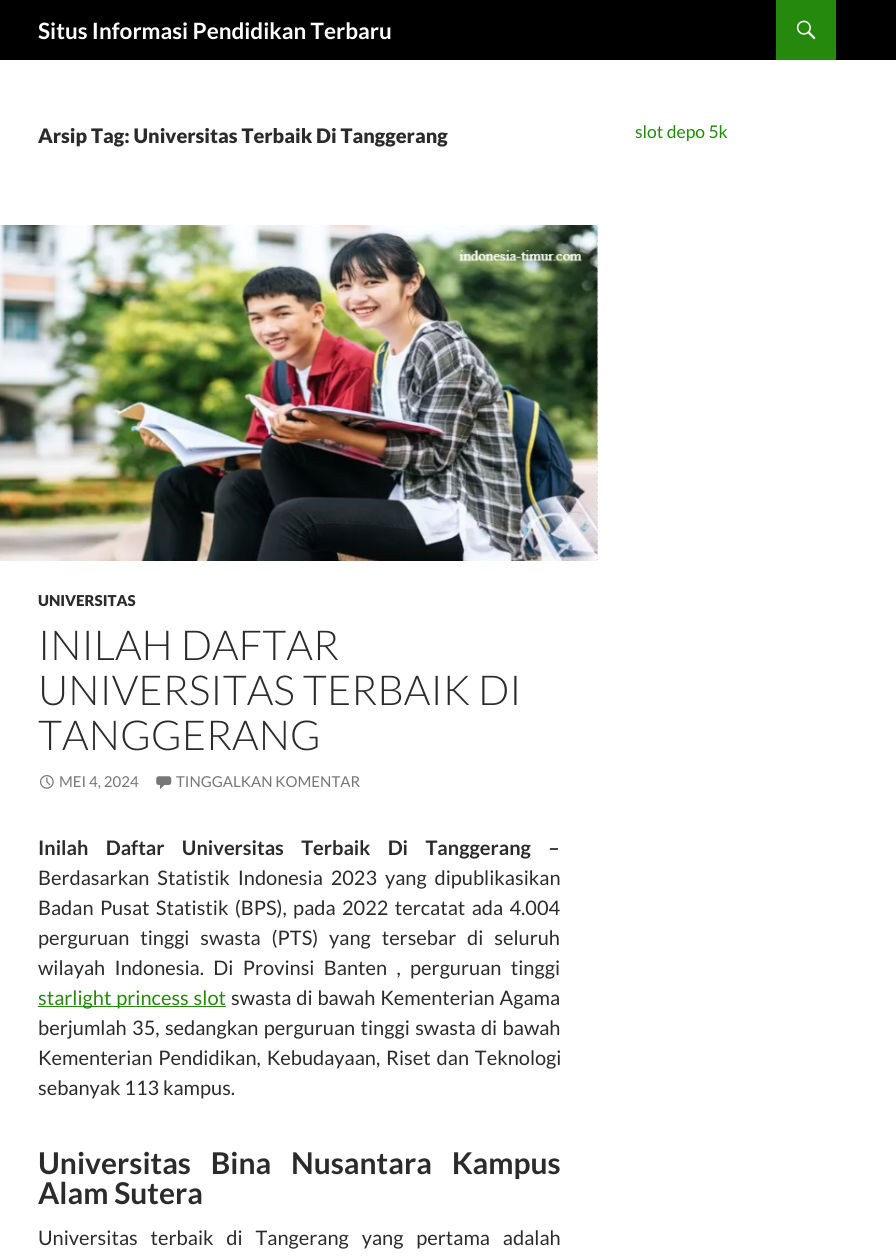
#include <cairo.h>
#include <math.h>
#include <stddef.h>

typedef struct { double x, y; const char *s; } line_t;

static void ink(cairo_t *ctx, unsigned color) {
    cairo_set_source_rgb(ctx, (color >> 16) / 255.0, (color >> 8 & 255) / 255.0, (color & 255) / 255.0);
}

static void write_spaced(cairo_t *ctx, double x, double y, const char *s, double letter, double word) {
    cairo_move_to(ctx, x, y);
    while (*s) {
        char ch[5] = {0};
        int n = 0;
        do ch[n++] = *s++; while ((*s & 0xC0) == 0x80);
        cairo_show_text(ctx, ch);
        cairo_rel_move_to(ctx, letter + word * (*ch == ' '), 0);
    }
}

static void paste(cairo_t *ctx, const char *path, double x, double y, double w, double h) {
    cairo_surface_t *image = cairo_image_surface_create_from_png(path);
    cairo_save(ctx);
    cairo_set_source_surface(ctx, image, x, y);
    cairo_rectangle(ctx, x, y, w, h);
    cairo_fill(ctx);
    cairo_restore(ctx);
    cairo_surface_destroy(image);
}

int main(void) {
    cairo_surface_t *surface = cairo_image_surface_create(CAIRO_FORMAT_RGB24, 896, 1256);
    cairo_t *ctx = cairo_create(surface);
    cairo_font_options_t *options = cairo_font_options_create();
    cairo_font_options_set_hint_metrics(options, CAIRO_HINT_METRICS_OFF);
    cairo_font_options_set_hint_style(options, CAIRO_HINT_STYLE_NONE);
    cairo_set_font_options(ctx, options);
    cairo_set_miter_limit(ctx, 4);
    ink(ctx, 0xFFFFFF);
    cairo_paint(ctx);
    ink(ctx, 0x000000);
    cairo_rectangle(ctx, 0, 0, 896, 60);
    cairo_fill(ctx);
    cairo_select_font_face(ctx, "Lato", CAIRO_FONT_SLANT_NORMAL, CAIRO_FONT_WEIGHT_BOLD);
    cairo_set_font_size(ctx, 22.5);
    ink(ctx, 0xFFFFFF);
    cairo_move_to(ctx, 38, 39);
    cairo_show_text(ctx, "Situs Informasi Pendidikan Terbaru");
    ink(ctx, 0x24890D);
    cairo_rectangle(ctx, 776, 0, 60, 60);
    cairo_fill(ctx);
    paste(ctx, "media/1.png", 796, 20, 20, 20);
    cairo_select_font_face(ctx, "Lato Black", CAIRO_FONT_SLANT_NORMAL, CAIRO_FONT_WEIGHT_NORMAL);
    cairo_set_font_size(ctx, 20);
    ink(ctx, 0x2B2B2B);
    cairo_move_to(ctx, 38, 143);
    cairo_show_text(ctx, "Arsip Tag: Universitas Terbaik Di Tanggerang");
    ink(ctx, 0xB2B2B2);
    cairo_rectangle(ctx, 597, 227, 1, 334);
    cairo_fill(ctx);
    paste(ctx, "media/2.png", 597, 225, 1, 336);
    paste(ctx, "media/3.png", 0, 225, 598, 336);
    cairo_set_font_size(ctx, 15);
    ink(ctx, 0x2B2B2B);
    cairo_move_to(ctx, 38, 606);
    cairo_show_text(ctx, "UNIVERSITAS");
    cairo_select_font_face(ctx, "Lato Light", CAIRO_FONT_SLANT_NORMAL, CAIRO_FONT_WEIGHT_NORMAL);
    cairo_set_font_size(ctx, 41.25);
    {
        static const line_t items[] = {
            {38, 660, "INILAH DAFTAR"},
            {38, 705, "UNIVERSITAS TERBAIK DI"},
            {38, 750, "TANGGERANG"},
        };
        for (size_t i = 0; i < sizeof items / sizeof *items; i++) {
            cairo_move_to(ctx, items[i].x, items[i].y);
            cairo_show_text(ctx, items[i].s);
        }
    }
    paste(ctx, "media/4.png", 40, 775, 14, 14);
    cairo_select_font_face(ctx, "Lato", CAIRO_FONT_SLANT_NORMAL, CAIRO_FONT_WEIGHT_NORMAL);
    cairo_set_font_size(ctx, 15);
    ink(ctx, 0x767676);
    cairo_move_to(ctx, 59, 787);
    cairo_show_text(ctx, "MEI 4, 2024");
    paste(ctx, "media/5.png", 156, 776, 16, 14);
    cairo_move_to(ctx, 176, 787);
    cairo_show_text(ctx, "TINGGALKAN KOMENTAR");
    cairo_select_font_face(ctx, "Lato", CAIRO_FONT_SLANT_NORMAL, CAIRO_FONT_WEIGHT_BOLD);
    cairo_set_font_size(ctx, 20);
    ink(ctx, 0x2B2B2B);
    write_spaced(ctx, 38, 855, "Inilah Daftar Universitas Terbaik Di Tanggerang –", 0, 13.5);
    cairo_select_font_face(ctx, "Lato", CAIRO_FONT_SLANT_NORMAL, CAIRO_FONT_WEIGHT_NORMAL);
    write_spaced(ctx, 38, 885, "Berdasarkan Statistik Indonesia 2023 yang dipublikasikan", 0, 4);
    write_spaced(ctx, 38, 915, "Badan Pusat Statistik (BPS), pada 2022 tercatat ada 4.004", 0, 2.5);
    write_spaced(ctx, 38, 945, "perguruan tinggi swasta (PTS) yang tersebar di seluruh", 0, 7);
    write_spaced(ctx, 38, 975, "wilayah Indonesia. Di Provinsi Banten , perguruan tinggi", 0, 5.5);
    ink(ctx, 0x24890D);
    cairo_rectangle(ctx, 38, 1006, 188, 1);
    cairo_fill(ctx);
    write_spaced(ctx, 38, 1005, "starlight princess slot", 0, 1);
    ink(ctx, 0x2B2B2B);
    write_spaced(ctx, 231, 1005, "swasta di bawah Kementerian Agama", 0, 1);
    write_spaced(ctx, 38, 1035, "berjumlah 35, sedangkan perguruan tinggi swasta di bawah", 0, 1.5);
    write_spaced(ctx, 38, 1065, "Kementerian Pendidikan, Kebudayaan, Riset dan Teknologi", 0, 2);
    cairo_move_to(ctx, 38, 1095);
    cairo_show_text(ctx, "sebanyak 113 kampus.");
    cairo_select_font_face(ctx, "Lato", CAIRO_FONT_SLANT_NORMAL, CAIRO_FONT_WEIGHT_BOLD);
    cairo_set_font_size(ctx, 30);
    write_spaced(ctx, 38, 1174, "Universitas Bina Nusantara Kampus", 0, 14);
    cairo_move_to(ctx, 38, 1204);
    cairo_show_text(ctx, "Alam Sutera");
    cairo_select_font_face(ctx, "Lato", CAIRO_FONT_SLANT_NORMAL, CAIRO_FONT_WEIGHT_NORMAL);
    cairo_set_font_size(ctx, 20);
    write_spaced(ctx, 38, 1245, "Universitas terbaik di Tangerang yang pertama adalah", 0, 9);
    cairo_set_font_size(ctx, 17.5);
    ink(ctx, 0x24890D);
    cairo_move_to(ctx, 635, 138);
    cairo_show_text(ctx, "slot depo 5k");
    cairo_surface_write_to_png(surface, "image.png");
    cairo_font_options_destroy(options);
    cairo_destroy(ctx);
    cairo_surface_destroy(surface);
    return 0;
}
